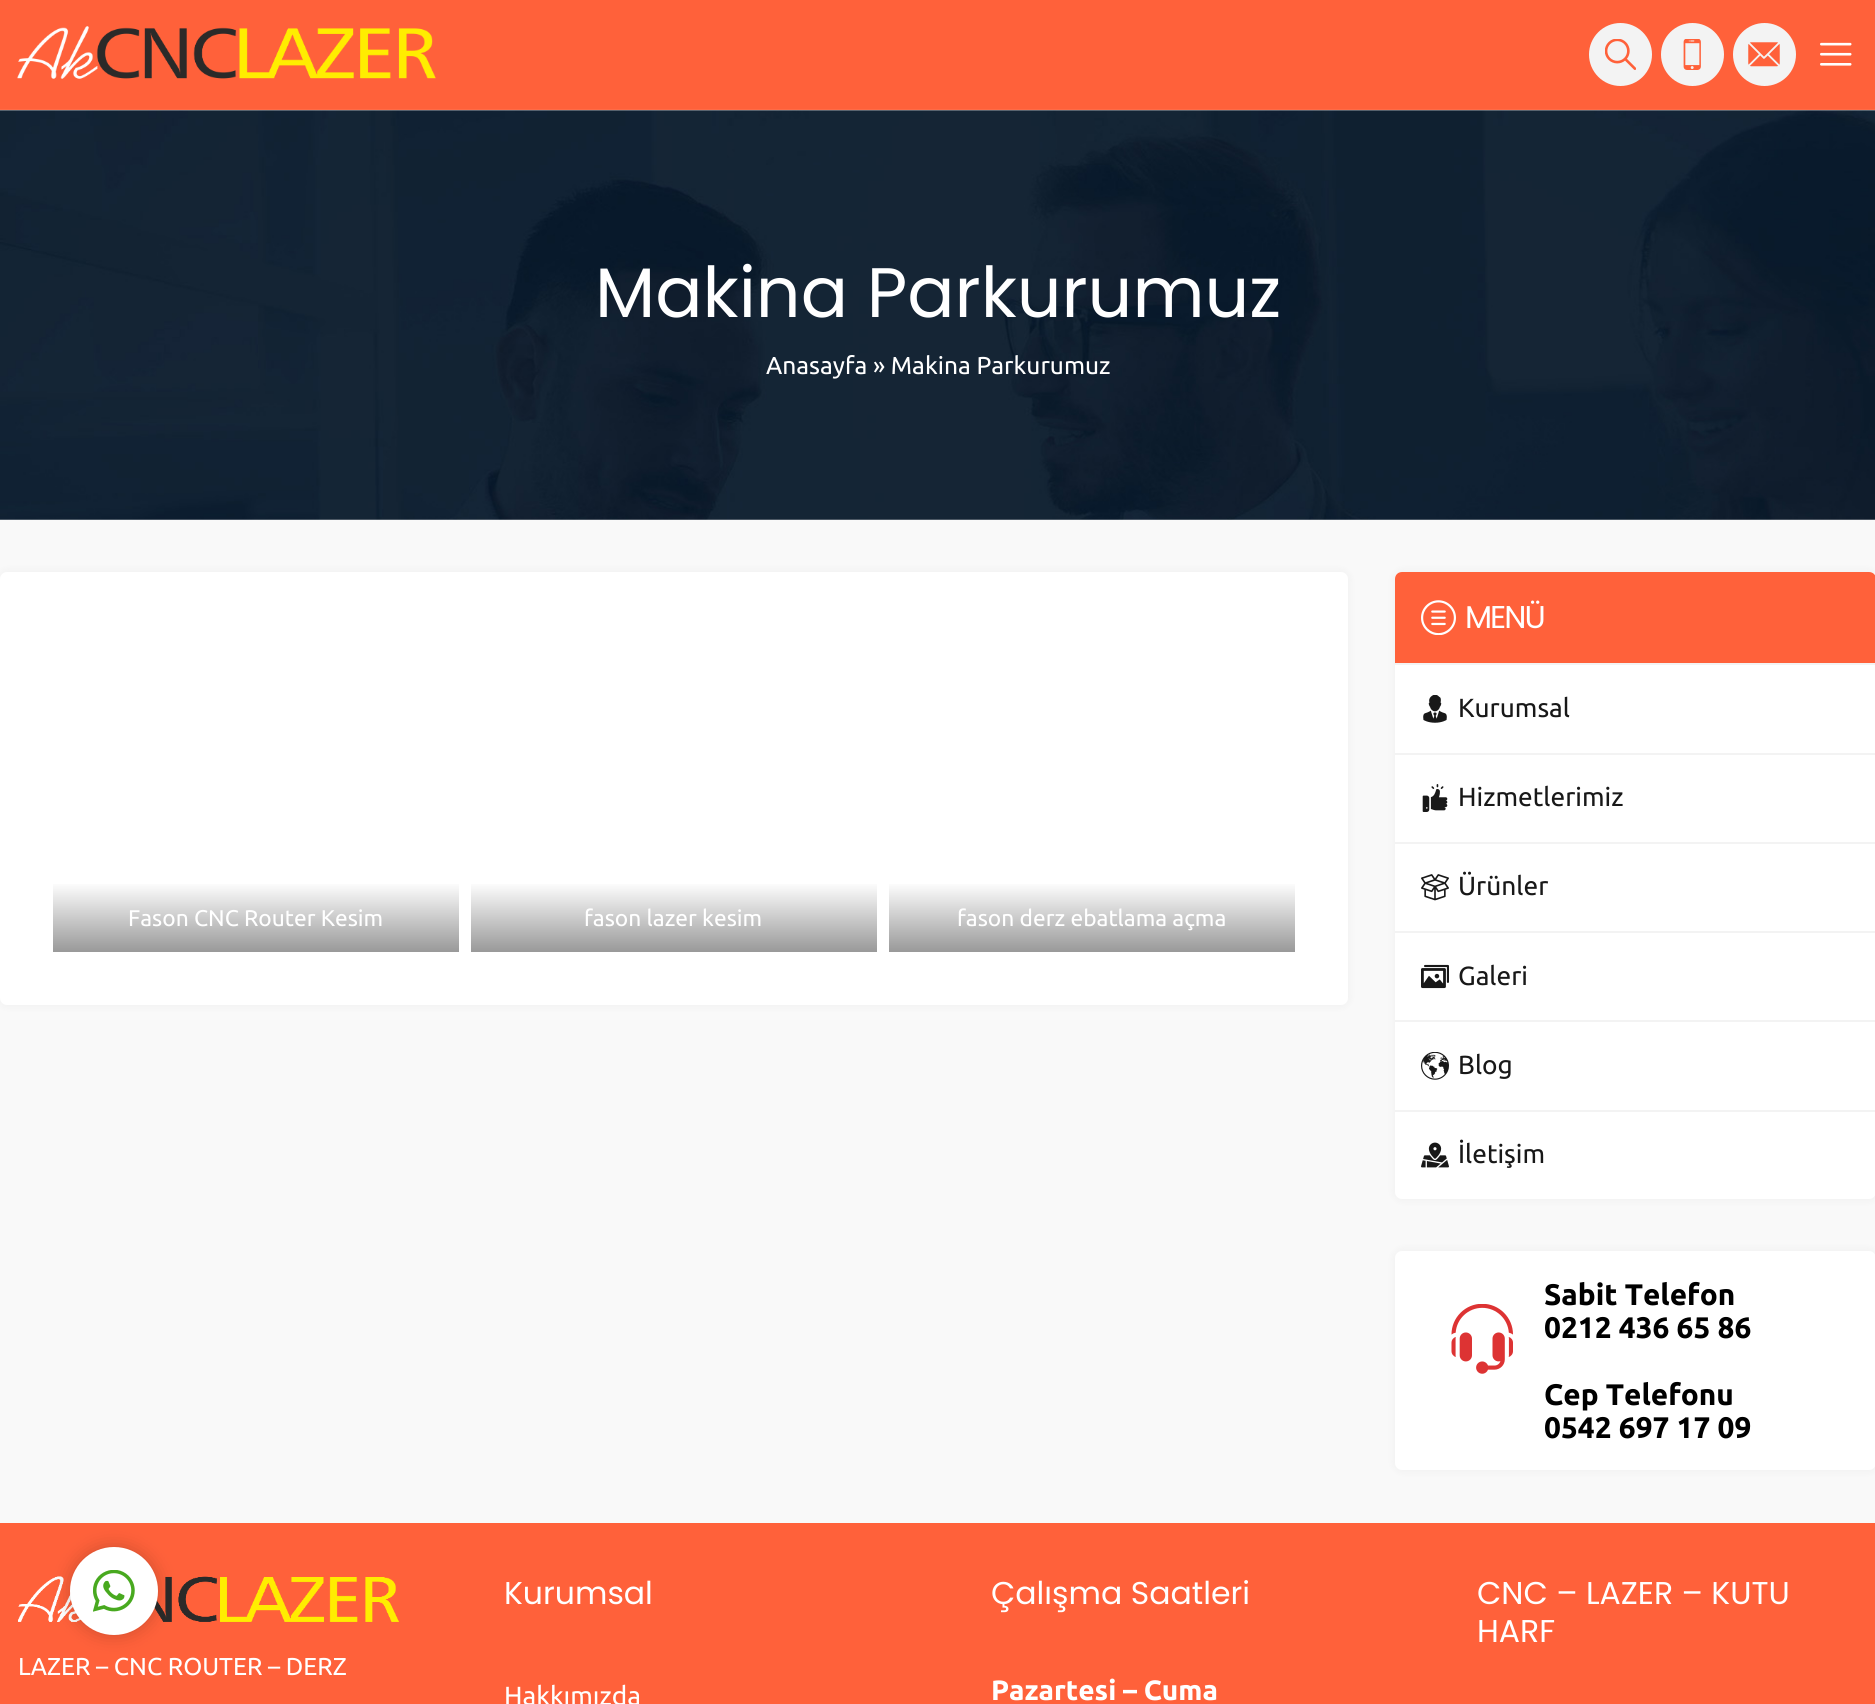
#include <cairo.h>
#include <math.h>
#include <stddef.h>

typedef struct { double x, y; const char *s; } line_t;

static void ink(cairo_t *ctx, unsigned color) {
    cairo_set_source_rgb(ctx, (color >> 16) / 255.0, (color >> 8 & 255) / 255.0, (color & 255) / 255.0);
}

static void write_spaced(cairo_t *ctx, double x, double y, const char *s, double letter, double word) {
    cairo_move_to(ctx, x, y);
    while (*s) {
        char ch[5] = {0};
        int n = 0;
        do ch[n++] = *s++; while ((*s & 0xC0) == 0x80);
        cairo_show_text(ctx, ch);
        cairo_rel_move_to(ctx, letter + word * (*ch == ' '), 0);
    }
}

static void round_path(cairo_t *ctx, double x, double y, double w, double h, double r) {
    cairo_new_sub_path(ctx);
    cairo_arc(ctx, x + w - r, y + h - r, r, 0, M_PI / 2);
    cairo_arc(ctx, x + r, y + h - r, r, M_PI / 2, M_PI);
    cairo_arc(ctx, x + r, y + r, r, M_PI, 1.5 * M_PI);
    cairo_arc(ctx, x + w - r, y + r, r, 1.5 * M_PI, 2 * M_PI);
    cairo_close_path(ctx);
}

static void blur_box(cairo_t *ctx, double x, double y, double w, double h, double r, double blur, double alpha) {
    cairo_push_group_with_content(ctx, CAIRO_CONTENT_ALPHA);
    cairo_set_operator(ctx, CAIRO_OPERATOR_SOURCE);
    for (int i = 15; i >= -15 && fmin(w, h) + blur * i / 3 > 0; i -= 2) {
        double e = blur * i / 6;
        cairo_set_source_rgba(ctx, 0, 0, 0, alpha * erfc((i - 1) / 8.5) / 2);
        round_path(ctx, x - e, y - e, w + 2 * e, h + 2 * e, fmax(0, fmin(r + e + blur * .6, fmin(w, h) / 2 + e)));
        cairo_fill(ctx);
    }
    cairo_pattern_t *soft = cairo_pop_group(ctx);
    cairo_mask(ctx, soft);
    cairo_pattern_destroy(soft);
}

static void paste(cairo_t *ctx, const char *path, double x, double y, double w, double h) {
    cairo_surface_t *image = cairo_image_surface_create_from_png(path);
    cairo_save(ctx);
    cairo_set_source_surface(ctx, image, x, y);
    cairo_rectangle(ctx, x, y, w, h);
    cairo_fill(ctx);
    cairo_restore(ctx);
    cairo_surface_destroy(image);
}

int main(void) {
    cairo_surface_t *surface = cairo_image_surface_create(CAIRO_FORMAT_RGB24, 1875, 1704);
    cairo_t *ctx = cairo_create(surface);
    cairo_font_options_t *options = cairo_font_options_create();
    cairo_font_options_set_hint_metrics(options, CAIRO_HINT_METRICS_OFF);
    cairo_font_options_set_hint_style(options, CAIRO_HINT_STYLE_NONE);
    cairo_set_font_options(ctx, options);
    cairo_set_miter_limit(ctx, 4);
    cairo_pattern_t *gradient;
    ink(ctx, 0xF9F9F9);
    cairo_paint(ctx);
    ink(ctx, 0xFF613A);
    cairo_rectangle(ctx, 0, 0, 1875, 110);
    cairo_fill(ctx);
    paste(ctx, "media/1.png", 17, 26, 419, 53);
    ink(ctx, 0xF3F3F3);
    cairo_arc(ctx, 1620.5, 54.5, 31.5, 0, 2 * M_PI);
    cairo_fill(ctx);
    paste(ctx, "media/2.png", 1605, 39, 31, 31);
    cairo_arc(ctx, 1692.5, 54.5, 31.5, 0, 2 * M_PI);
    cairo_fill(ctx);
    paste(ctx, "media/3.png", 1683, 39, 18, 31);
    cairo_arc(ctx, 1764.5, 54.5, 31.5, 0, 2 * M_PI);
    cairo_fill(ctx);
    paste(ctx, "media/4.png", 1748, 42, 32, 25);
    paste(ctx, "media/5.png", 1820, 42, 32, 24);
    paste(ctx, "media/6.png", 0, 110, 1875, 410);
    cairo_set_source_rgba(ctx, 1, 1, 1, 0.07);
    cairo_rectangle(ctx, 0, 109, 1875, 2);
    cairo_fill(ctx);
    cairo_select_font_face(ctx, "Poppins", CAIRO_FONT_SLANT_NORMAL, CAIRO_FONT_WEIGHT_NORMAL);
    cairo_set_font_size(ctx, 70);
    ink(ctx, 0xFFFFFF);
    cairo_move_to(ctx, 595, 317);
    cairo_show_text(ctx, "Makina Parkurumuz");
    cairo_select_font_face(ctx, "Ubuntu", CAIRO_FONT_SLANT_NORMAL, CAIRO_FONT_WEIGHT_NORMAL);
    cairo_set_font_size(ctx, 24.5);
    cairo_move_to(ctx, 766, 374);
    cairo_show_text(ctx, "Anasayfa » Makina Parkurumuz");
    ink(ctx, 0x000000);
    blur_box(ctx, 0, 572, 1348, 433, 7, 4.5, 0.05);
    ink(ctx, 0xFFFFFF);
    round_path(ctx, 0, 572, 1348, 433, 7);
    cairo_fill(ctx);
    gradient = cairo_pattern_create_linear(256, 952, 256, 882);
    cairo_pattern_add_color_stop_rgba(gradient, 0, 0.6, 0.6, 0.6, 1);
    cairo_pattern_add_color_stop_rgba(gradient, 1, 1, 1, 1, 1);
    cairo_set_source(ctx, gradient);
    cairo_pattern_destroy(gradient);
    cairo_rectangle(ctx, 53, 884, 406, 68);
    cairo_fill(ctx);
    cairo_set_font_size(ctx, 22.75);
    ink(ctx, 0xFFFFFF);
    cairo_move_to(ctx, 128, 926);
    cairo_show_text(ctx, "Fason CNC Router Kesim");
    gradient = cairo_pattern_create_linear(674, 952, 674, 882);
    cairo_pattern_add_color_stop_rgba(gradient, 0, 0.6, 0.6, 0.6, 1);
    cairo_pattern_add_color_stop_rgba(gradient, 1, 1, 1, 1, 1);
    cairo_set_source(ctx, gradient);
    cairo_pattern_destroy(gradient);
    cairo_rectangle(ctx, 471, 884, 406, 68);
    cairo_fill(ctx);
    ink(ctx, 0xFFFFFF);
    cairo_move_to(ctx, 584, 926);
    cairo_show_text(ctx, "fason lazer kesim");
    gradient = cairo_pattern_create_linear(1092, 952, 1092, 882);
    cairo_pattern_add_color_stop_rgba(gradient, 0, 0.6, 0.6, 0.6, 1);
    cairo_pattern_add_color_stop_rgba(gradient, 1, 1, 1, 1, 1);
    cairo_set_source(ctx, gradient);
    cairo_pattern_destroy(gradient);
    cairo_rectangle(ctx, 889, 884, 406, 68);
    cairo_fill(ctx);
    ink(ctx, 0xFFFFFF);
    cairo_move_to(ctx, 957, 926);
    cairo_show_text(ctx, "fason derz ebatlama açma");
    ink(ctx, 0x000000);
    blur_box(ctx, 1395, 572, 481, 627, 7, 4.5, 0.05);
    ink(ctx, 0xFFFFFF);
    round_path(ctx, 1395, 572, 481, 627, 7);
    cairo_fill(ctx);
    ink(ctx, 0xFF613A);
    cairo_new_path(ctx);
    cairo_move_to(ctx, 1402, 572);
    cairo_line_to(ctx, 1869, 572);
    cairo_curve_to(ctx, 1873, 572, 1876, 575, 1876, 579);
    cairo_line_to(ctx, 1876, 663);
    cairo_line_to(ctx, 1395, 663);
    cairo_line_to(ctx, 1395, 579);
    cairo_curve_to(ctx, 1395, 575, 1398, 572, 1402, 572);
    cairo_close_path(ctx);
    cairo_fill(ctx);
    paste(ctx, "media/7.png", 1421, 600, 35, 35);
    cairo_select_font_face(ctx, "Poppins", CAIRO_FONT_SLANT_NORMAL, CAIRO_FONT_WEIGHT_NORMAL);
    cairo_set_font_size(ctx, 31.5);
    ink(ctx, 0xFFFFFF);
    write_spaced(ctx, 1465, 628, "MENÜ", -2, 0);
    ink(ctx, 0xF3F3F3);
    cairo_rectangle(ctx, 1395, 663, 480, 2);
    cairo_fill(ctx);
    paste(ctx, "media/8.png", 1423, 695, 24, 28);
    cairo_select_font_face(ctx, "Ubuntu", CAIRO_FONT_SLANT_NORMAL, CAIRO_FONT_WEIGHT_NORMAL);
    cairo_set_font_size(ctx, 26.25);
    ink(ctx, 0x181818);
    cairo_move_to(ctx, 1458, 717);
    cairo_show_text(ctx, "Kurumsal");
    ink(ctx, 0xF3F3F3);
    cairo_rectangle(ctx, 1395, 753, 480, 2);
    cairo_fill(ctx);
    paste(ctx, "media/9.png", 1422, 784, 26, 28);
    ink(ctx, 0x181818);
    cairo_move_to(ctx, 1458, 806);
    cairo_show_text(ctx, "Hizmetlerimiz");
    ink(ctx, 0xF3F3F3);
    cairo_rectangle(ctx, 1395, 842, 480, 2);
    cairo_fill(ctx);
    paste(ctx, "media/10.png", 1421, 874, 28, 27);
    ink(ctx, 0x181818);
    cairo_move_to(ctx, 1458, 895);
    cairo_show_text(ctx, "Ürünler");
    ink(ctx, 0xF3F3F3);
    cairo_rectangle(ctx, 1395, 931, 480, 2);
    cairo_fill(ctx);
    paste(ctx, "media/11.png", 1421, 964, 28, 25);
    ink(ctx, 0x181818);
    cairo_move_to(ctx, 1458, 985);
    cairo_show_text(ctx, "Galeri");
    ink(ctx, 0xF3F3F3);
    cairo_rectangle(ctx, 1395, 1020, 480, 2);
    cairo_fill(ctx);
    paste(ctx, "media/12.png", 1421, 1052, 28, 28);
    ink(ctx, 0x181818);
    cairo_move_to(ctx, 1458, 1074);
    cairo_show_text(ctx, "Blog");
    ink(ctx, 0xF3F3F3);
    cairo_rectangle(ctx, 1395, 1110, 480, 2);
    cairo_fill(ctx);
    paste(ctx, "media/13.png", 1421, 1142, 28, 26);
    ink(ctx, 0x181818);
    cairo_move_to(ctx, 1458, 1163);
    cairo_show_text(ctx, "İletişim");
    ink(ctx, 0x000000);
    blur_box(ctx, 1395, 1251, 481, 219, 7, 4.5, 0.05);
    ink(ctx, 0xFFFFFF);
    round_path(ctx, 1395, 1251, 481, 219, 7);
    cairo_fill(ctx);
    paste(ctx, "media/14.png", 1451, 1304, 62, 70);
    cairo_select_font_face(ctx, "Ubuntu", CAIRO_FONT_SLANT_NORMAL, CAIRO_FONT_WEIGHT_BOLD);
    cairo_set_font_size(ctx, 29.75);
    ink(ctx, 0x000000);
    {
        static const line_t items[] = {
            {1544, 1305, "Sabit Telefon"},
            {1544, 1338, "0212 436 65 86"},
            {1544, 1405, "Cep Telefonu"},
            {1544, 1438, "0542 697 17 09"},
        };
        for (size_t i = 0; i < sizeof items / sizeof *items; i++) {
            cairo_move_to(ctx, items[i].x, items[i].y);
            cairo_show_text(ctx, items[i].s);
        }
    }
    ink(ctx, 0xFF613A);
    cairo_rectangle(ctx, 0, 1523, 1875, 181);
    cairo_fill(ctx);
    paste(ctx, "media/16.png", 18, 1576, 381, 46);
    ink(ctx, 0x000000);
    blur_box(ctx, 70, 1547, 88, 88, 44, 9, 0.2);
    ink(ctx, 0xFFFFFF);
    cairo_arc(ctx, 114, 1591, 44, 0, 2 * M_PI);
    cairo_fill(ctx);
    paste(ctx, "media/15.png", 93, 1570, 42, 42);
    cairo_select_font_face(ctx, "Poppins", CAIRO_FONT_SLANT_NORMAL, CAIRO_FONT_WEIGHT_NORMAL);
    cairo_set_font_size(ctx, 31.5);
    cairo_move_to(ctx, 504, 1604);
    cairo_show_text(ctx, "Kurumsal");
    cairo_select_font_face(ctx, "Ubuntu", CAIRO_FONT_SLANT_NORMAL, CAIRO_FONT_WEIGHT_NORMAL);
    cairo_set_font_size(ctx, 26.25);
    cairo_move_to(ctx, 504, 1705);
    cairo_show_text(ctx, "Hakkımızda");
    cairo_select_font_face(ctx, "Poppins", CAIRO_FONT_SLANT_NORMAL, CAIRO_FONT_WEIGHT_NORMAL);
    cairo_set_font_size(ctx, 31.5);
    cairo_move_to(ctx, 991, 1604);
    cairo_show_text(ctx, "Çalışma Saatleri");
    cairo_select_font_face(ctx, "Ubuntu", CAIRO_FONT_SLANT_NORMAL, CAIRO_FONT_WEIGHT_BOLD);
    cairo_set_font_size(ctx, 28);
    cairo_move_to(ctx, 991, 1700);
    cairo_show_text(ctx, "Pazartesi – Cuma");
    cairo_select_font_face(ctx, "Poppins", CAIRO_FONT_SLANT_NORMAL, CAIRO_FONT_WEIGHT_NORMAL);
    cairo_set_font_size(ctx, 31.5);
    cairo_move_to(ctx, 1477, 1604);
    cairo_show_text(ctx, "CNC – LAZER – KUTU");
    cairo_move_to(ctx, 1477, 1642);
    cairo_show_text(ctx, "HARF");
    cairo_select_font_face(ctx, "Ubuntu", CAIRO_FONT_SLANT_NORMAL, CAIRO_FONT_WEIGHT_NORMAL);
    cairo_set_font_size(ctx, 24.5);
    cairo_move_to(ctx, 18, 1675);
    cairo_show_text(ctx, "LAZER – CNC ROUTER – DERZ");
    cairo_surface_write_to_png(surface, "image.png");
    cairo_font_options_destroy(options);
    cairo_destroy(ctx);
    cairo_surface_destroy(surface);
    return 0;
}
